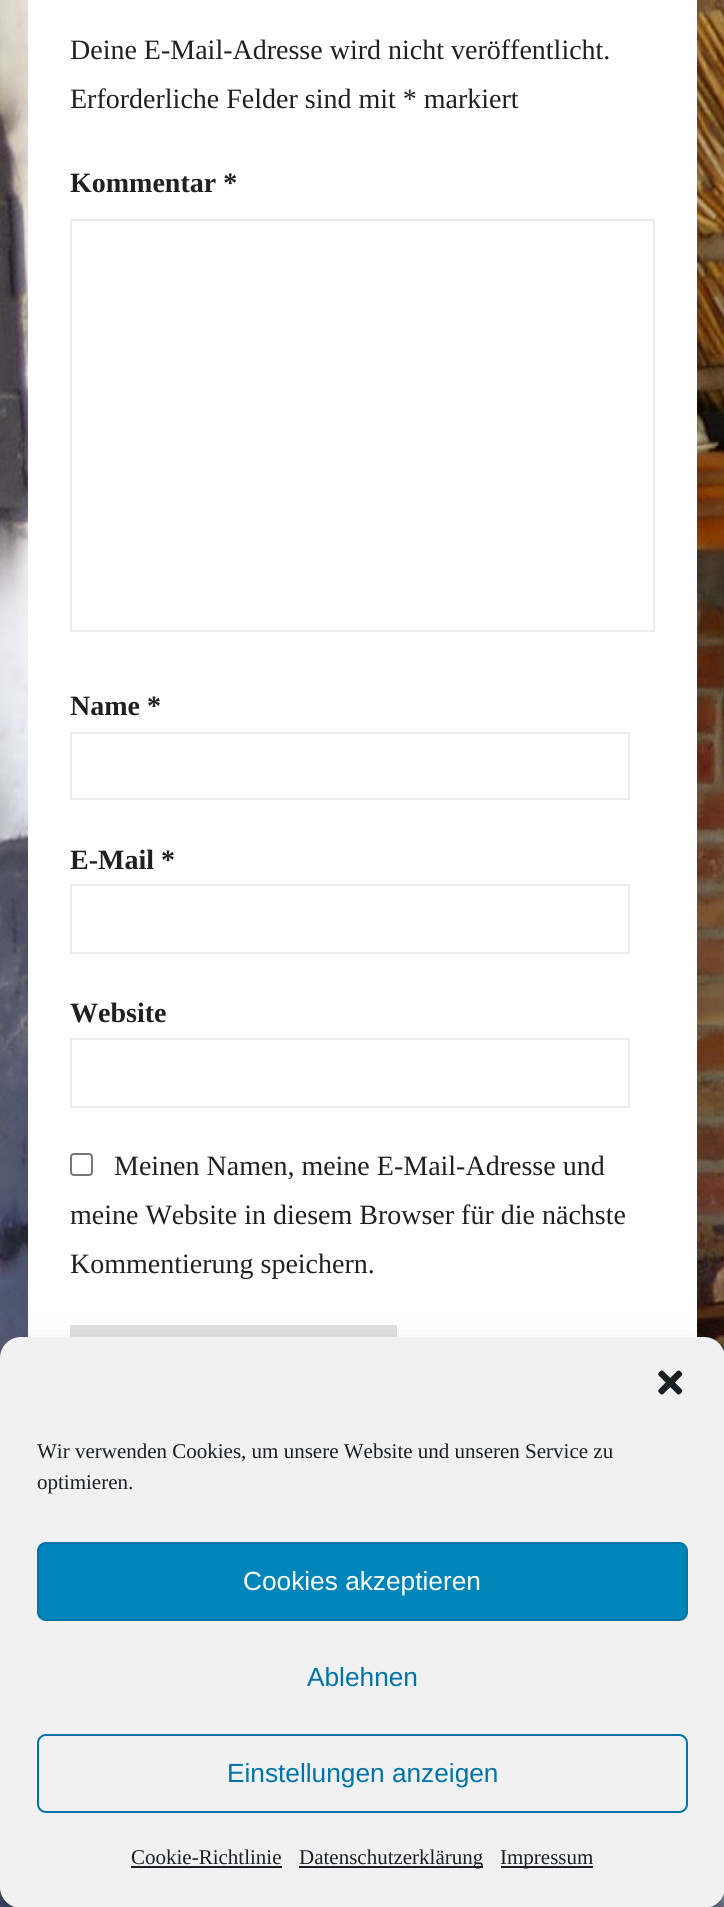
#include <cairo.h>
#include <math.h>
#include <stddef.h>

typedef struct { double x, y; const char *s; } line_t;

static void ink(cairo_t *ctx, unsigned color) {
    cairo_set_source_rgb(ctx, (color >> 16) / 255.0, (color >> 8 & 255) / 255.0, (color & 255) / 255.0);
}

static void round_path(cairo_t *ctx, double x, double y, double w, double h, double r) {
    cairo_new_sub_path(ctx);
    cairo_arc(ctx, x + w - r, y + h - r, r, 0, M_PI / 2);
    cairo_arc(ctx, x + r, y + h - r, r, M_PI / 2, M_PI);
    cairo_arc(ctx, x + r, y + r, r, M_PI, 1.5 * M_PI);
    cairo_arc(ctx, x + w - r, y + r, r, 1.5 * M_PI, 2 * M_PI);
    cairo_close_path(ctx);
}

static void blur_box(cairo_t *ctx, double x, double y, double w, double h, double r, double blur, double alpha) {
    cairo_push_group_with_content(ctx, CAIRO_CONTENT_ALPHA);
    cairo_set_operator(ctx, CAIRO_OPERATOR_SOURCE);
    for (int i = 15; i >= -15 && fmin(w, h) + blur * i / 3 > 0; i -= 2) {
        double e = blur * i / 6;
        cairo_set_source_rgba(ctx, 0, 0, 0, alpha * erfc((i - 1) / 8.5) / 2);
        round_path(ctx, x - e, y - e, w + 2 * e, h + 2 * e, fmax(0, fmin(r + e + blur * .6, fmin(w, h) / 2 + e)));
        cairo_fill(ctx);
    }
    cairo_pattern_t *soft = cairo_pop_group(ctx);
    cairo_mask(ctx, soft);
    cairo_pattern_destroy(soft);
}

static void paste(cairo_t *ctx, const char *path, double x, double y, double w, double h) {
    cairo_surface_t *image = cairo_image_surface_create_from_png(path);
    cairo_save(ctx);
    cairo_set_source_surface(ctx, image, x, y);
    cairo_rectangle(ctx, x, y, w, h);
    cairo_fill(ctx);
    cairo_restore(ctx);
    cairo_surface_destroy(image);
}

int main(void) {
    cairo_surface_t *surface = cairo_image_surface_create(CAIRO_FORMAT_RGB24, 724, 1907);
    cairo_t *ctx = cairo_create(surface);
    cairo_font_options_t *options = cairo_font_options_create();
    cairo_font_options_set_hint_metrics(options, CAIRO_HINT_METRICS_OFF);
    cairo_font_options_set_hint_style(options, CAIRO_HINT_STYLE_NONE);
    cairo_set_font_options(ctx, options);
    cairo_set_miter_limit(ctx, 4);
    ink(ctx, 0xFFFFFF);
    cairo_paint(ctx);
    paste(ctx, "media/1.png", 0, 0, 724, 1907);
    ink(ctx, 0xFFFFFF);
    cairo_rectangle(ctx, 28, 0, 669, 1337);
    cairo_fill(ctx);
    cairo_select_font_face(ctx, "Liberation Serif", CAIRO_FONT_SLANT_NORMAL, CAIRO_FONT_WEIGHT_NORMAL);
    cairo_set_font_size(ctx, 28);
    ink(ctx, 0x202020);
    cairo_move_to(ctx, 70, 59);
    cairo_show_text(ctx, "Deine E-Mail-Adresse wird nicht veröffentlicht.");
    cairo_move_to(ctx, 70, 108);
    cairo_show_text(ctx, "Erforderliche Felder sind mit * markiert");
    cairo_select_font_face(ctx, "Liberation Serif", CAIRO_FONT_SLANT_NORMAL, CAIRO_FONT_WEIGHT_BOLD);
    cairo_move_to(ctx, 70, 192);
    cairo_show_text(ctx, "Kommentar *");
    cairo_rectangle(ctx, 71, 220, 583, 411);
    ink(ctx, 0xECECEC);
    cairo_stroke(ctx);
    ink(ctx, 0x202020);
    cairo_move_to(ctx, 70, 715);
    cairo_show_text(ctx, "Name *");
    cairo_rectangle(ctx, 71, 733, 558, 66);
    ink(ctx, 0xECECEC);
    cairo_stroke(ctx);
    ink(ctx, 0x202020);
    cairo_move_to(ctx, 70, 869);
    cairo_show_text(ctx, "E-Mail *");
    cairo_rectangle(ctx, 71, 885, 558, 68);
    ink(ctx, 0xECECEC);
    cairo_stroke(ctx);
    ink(ctx, 0x202020);
    cairo_move_to(ctx, 70, 1022);
    cairo_show_text(ctx, "Website");
    cairo_rectangle(ctx, 71, 1039, 558, 68);
    ink(ctx, 0xECECEC);
    cairo_stroke(ctx);
    round_path(ctx, 71, 1154, 21, 21, 3);
    ink(ctx, 0x767676);
    cairo_stroke(ctx);
    cairo_select_font_face(ctx, "Liberation Serif", CAIRO_FONT_SLANT_NORMAL, CAIRO_FONT_WEIGHT_NORMAL);
    ink(ctx, 0x202020);
    {
        static const line_t items[] = {
            {114, 1175, "Meinen Namen, meine E-Mail-Adresse und"},
            {70, 1224, "meine Website in diesem Browser für die nächste"},
            {70, 1273, "Kommentierung speichern."},
        };
        for (size_t i = 0; i < sizeof items / sizeof *items; i++) {
            cairo_move_to(ctx, items[i].x, items[i].y);
            cairo_show_text(ctx, items[i].s);
        }
    }
    ink(ctx, 0xE0E0E0);
    cairo_rectangle(ctx, 70, 1325, 327, 12);
    cairo_fill(ctx);
    ink(ctx, 0x000000);
    blur_box(ctx, 0, 1348, 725, 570, 21, 5, 0.23);
    blur_box(ctx, 0, 1355, 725, 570, 21, 17.5, 0.19);
    ink(ctx, 0xF1F1F1);
    round_path(ctx, 1, 1338, 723, 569, 20);
    cairo_fill_preserve(ctx);
    cairo_stroke(ctx);
    paste(ctx, "media/2.png", 658, 1370, 25, 25);
    cairo_set_font_size(ctx, 21);
    ink(ctx, 0x191E23);
    cairo_move_to(ctx, 37, 1458);
    cairo_show_text(ctx, "Wir verwenden Cookies, um unsere Website und unseren Service zu");
    cairo_move_to(ctx, 37, 1489);
    cairo_show_text(ctx, "optimieren.");
    ink(ctx, 0x0085BA);
    round_path(ctx, 38, 1543, 649, 77, 8);
    cairo_fill_preserve(ctx);
    ink(ctx, 0x0073AA);
    cairo_stroke(ctx);
    cairo_select_font_face(ctx, "Liberation Sans", CAIRO_FONT_SLANT_NORMAL, CAIRO_FONT_WEIGHT_NORMAL);
    cairo_set_font_size(ctx, 26.25);
    ink(ctx, 0xFFFFFF);
    cairo_move_to(ctx, 243, 1590);
    cairo_show_text(ctx, "Cookies akzeptieren");
    ink(ctx, 0x0073AA);
    cairo_move_to(ctx, 307, 1686);
    cairo_show_text(ctx, "Ablehnen");
    round_path(ctx, 38, 1735, 649, 77, 8);
    cairo_stroke(ctx);
    cairo_move_to(ctx, 227, 1782);
    cairo_show_text(ctx, "Einstellungen anzeigen");
    cairo_select_font_face(ctx, "Liberation Serif", CAIRO_FONT_SLANT_NORMAL, CAIRO_FONT_WEIGHT_NORMAL);
    cairo_set_font_size(ctx, 21);
    ink(ctx, 0x191E23);
    cairo_move_to(ctx, 131, 1864);
    cairo_show_text(ctx, "Cookie-Richtlinie");
    cairo_rectangle(ctx, 131, 1866, 151, 2);
    cairo_fill(ctx);
    cairo_rectangle(ctx, 299, 1866, 184, 2);
    cairo_fill(ctx);
    cairo_move_to(ctx, 299, 1864);
    cairo_show_text(ctx, "Datenschutzerklärung");
    cairo_rectangle(ctx, 501, 1866, 92, 2);
    cairo_fill(ctx);
    cairo_move_to(ctx, 500, 1864);
    cairo_show_text(ctx, "Impressum");
    cairo_surface_write_to_png(surface, "image.png");
    cairo_font_options_destroy(options);
    cairo_destroy(ctx);
    cairo_surface_destroy(surface);
    return 0;
}
